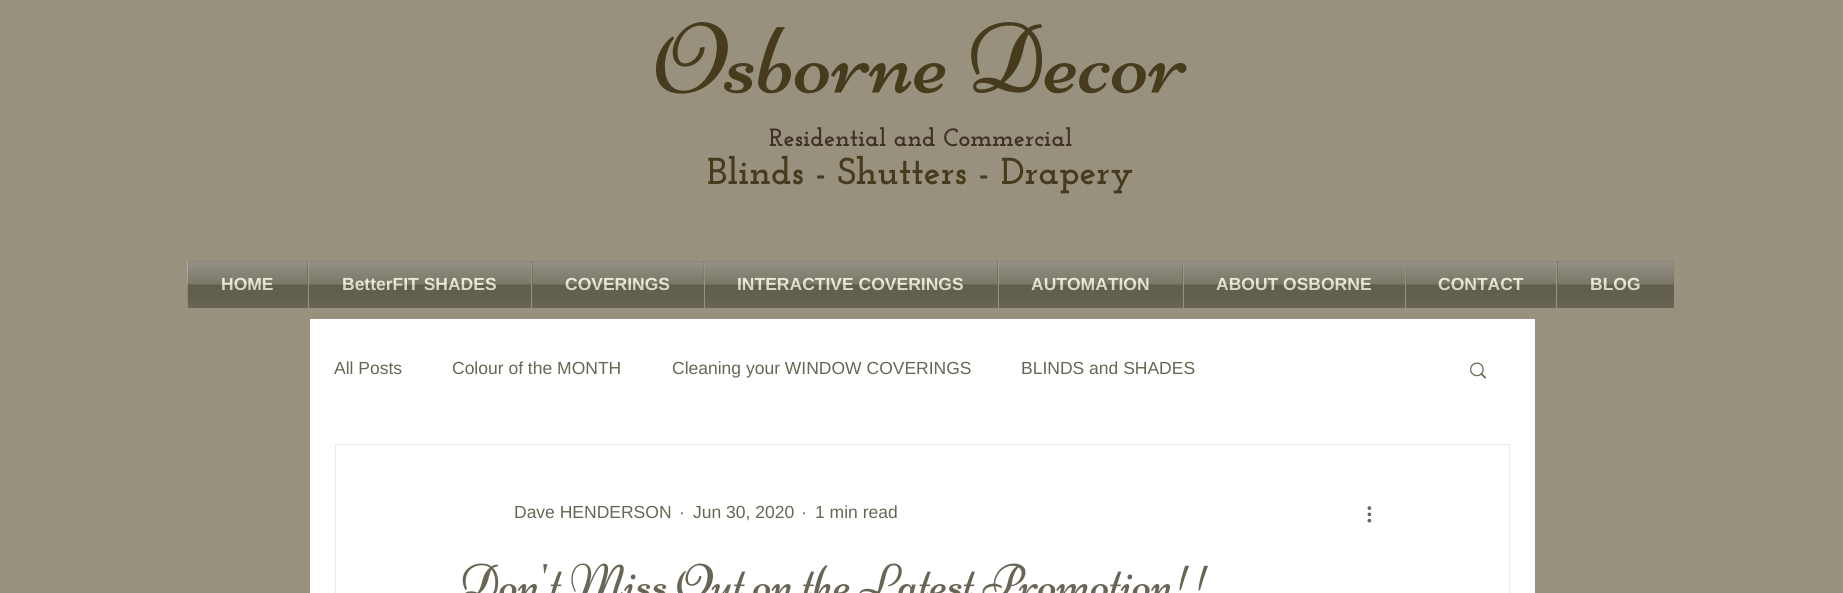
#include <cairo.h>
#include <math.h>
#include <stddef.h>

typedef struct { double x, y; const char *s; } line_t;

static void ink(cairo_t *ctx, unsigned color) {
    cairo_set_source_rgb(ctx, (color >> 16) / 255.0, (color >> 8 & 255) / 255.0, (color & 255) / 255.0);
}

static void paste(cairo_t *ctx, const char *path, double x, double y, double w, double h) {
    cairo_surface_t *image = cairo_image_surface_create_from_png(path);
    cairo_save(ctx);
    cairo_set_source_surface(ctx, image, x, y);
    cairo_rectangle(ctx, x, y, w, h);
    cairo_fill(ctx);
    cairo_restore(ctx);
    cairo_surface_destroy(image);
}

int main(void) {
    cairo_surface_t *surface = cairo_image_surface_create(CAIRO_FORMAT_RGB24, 1843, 593);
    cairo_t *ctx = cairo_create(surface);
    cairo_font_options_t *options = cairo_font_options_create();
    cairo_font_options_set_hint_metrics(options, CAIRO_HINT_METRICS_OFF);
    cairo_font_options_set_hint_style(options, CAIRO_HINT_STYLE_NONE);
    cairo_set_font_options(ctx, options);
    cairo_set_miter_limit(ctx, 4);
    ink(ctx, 0x97917D);
    cairo_paint(ctx);
    paste(ctx, "media/1.png", 656, 22, 531, 72);
    cairo_select_font_face(ctx, "Josefin Slab", CAIRO_FONT_SLANT_NORMAL, CAIRO_FONT_WEIGHT_BOLD);
    cairo_set_font_size(ctx, 25);
    ink(ctx, 0x403027);
    cairo_move_to(ctx, 769, 146);
    cairo_show_text(ctx, "Residential and Commercial");
    cairo_set_font_size(ctx, 37.5);
    ink(ctx, 0x473B1E);
    cairo_move_to(ctx, 707, 184);
    cairo_show_text(ctx, "Blinds - Shutters - Drapery");
    paste(ctx, "media/2.png", 187, 261, 1, 38);
    ink(ctx, 0x696554);
    cairo_rectangle(ctx, 188, 261, 120, 47);
    cairo_fill(ctx);
    cairo_select_font_face(ctx, "Liberation Sans", CAIRO_FONT_SLANT_NORMAL, CAIRO_FONT_WEIGHT_BOLD);
    cairo_set_font_size(ctx, 17.5);
    ink(ctx, 0xE9E4D1);
    cairo_move_to(ctx, 221, 290);
    cairo_show_text(ctx, "HOME");
    paste(ctx, "media/3.png", 187, 261, 121, 42);
    ink(ctx, 0x696554);
    cairo_rectangle(ctx, 309, 261, 222, 47);
    cairo_fill(ctx);
    ink(ctx, 0xE9E4D1);
    cairo_move_to(ctx, 342, 290);
    cairo_show_text(ctx, "BetterFIT SHADES");
    paste(ctx, "media/4.png", 308, 261, 223, 42);
    ink(ctx, 0x696554);
    cairo_rectangle(ctx, 532, 261, 172, 47);
    cairo_fill(ctx);
    ink(ctx, 0xE9E4D1);
    cairo_move_to(ctx, 565, 290);
    cairo_show_text(ctx, "COVERINGS");
    paste(ctx, "media/5.png", 532, 261, 172, 42);
    ink(ctx, 0x696554);
    cairo_rectangle(ctx, 705, 261, 293, 47);
    cairo_fill(ctx);
    ink(ctx, 0xE9E4D1);
    cairo_move_to(ctx, 737, 290);
    cairo_show_text(ctx, "INTERACTIVE COVERINGS");
    paste(ctx, "media/6.png", 705, 261, 293, 42);
    ink(ctx, 0x696554);
    cairo_rectangle(ctx, 999, 261, 184, 47);
    cairo_fill(ctx);
    ink(ctx, 0xE9E4D1);
    cairo_move_to(ctx, 1031, 290);
    cairo_show_text(ctx, "AUTOMATION");
    paste(ctx, "media/7.png", 998, 261, 185, 42);
    ink(ctx, 0x696554);
    cairo_rectangle(ctx, 1184, 261, 221, 47);
    cairo_fill(ctx);
    ink(ctx, 0xE9E4D1);
    cairo_move_to(ctx, 1216, 290);
    cairo_show_text(ctx, "ABOUT OSBORNE");
    paste(ctx, "media/8.png", 1183, 261, 222, 42);
    ink(ctx, 0x696554);
    cairo_rectangle(ctx, 1406, 261, 150, 47);
    cairo_fill(ctx);
    ink(ctx, 0xE9E4D1);
    cairo_move_to(ctx, 1438, 290);
    cairo_show_text(ctx, "CONTACT");
    paste(ctx, "media/9.png", 1406, 261, 150, 42);
    ink(ctx, 0x696554);
    cairo_rectangle(ctx, 1557, 261, 117, 47);
    cairo_fill(ctx);
    ink(ctx, 0xE9E4D1);
    cairo_move_to(ctx, 1590, 290);
    cairo_show_text(ctx, "BLOG");
    paste(ctx, "media/10.png", 1557, 261, 117, 42);
    ink(ctx, 0xFFFFFF);
    cairo_rectangle(ctx, 310, 319, 1225, 274);
    cairo_fill(ctx);
    cairo_select_font_face(ctx, "Liberation Sans", CAIRO_FONT_SLANT_NORMAL, CAIRO_FONT_WEIGHT_NORMAL);
    ink(ctx, 0x696554);
    {
        static const line_t items[] = {
            {334, 374, "All Posts"},
            {452, 374, "Colour of the MONTH"},
            {672, 374, "Cleaning your WINDOW COVERINGS"},
            {1021, 374, "BLINDS and SHADES"},
        };
        for (size_t i = 0; i < sizeof items / sizeof *items; i++) {
            cairo_move_to(ctx, items[i].x, items[i].y);
            cairo_show_text(ctx, items[i].s);
        }
    }
    paste(ctx, "media/11.png", 1470, 362, 17, 17);
    cairo_rectangle(ctx, 335.5, 444.5, 1174, 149);
    ink(ctx, 0xEFEBDD);
    cairo_set_line_width(ctx, 1);
    cairo_stroke(ctx);
    ink(ctx, 0x696554);
    {
        static const line_t items[] = {
            {514, 518, "Dave HENDERSON"},
            {679, 518, "·"},
            {693, 518, "Jun 30, 2020"},
            {801, 518, "·"},
            {815, 518, "1 min read"},
        };
        for (size_t i = 0; i < sizeof items / sizeof *items; i++) {
            cairo_move_to(ctx, items[i].x, items[i].y);
            cairo_show_text(ctx, items[i].s);
        }
    }
    paste(ctx, "media/12.png", 1367, 506, 5, 17);
    paste(ctx, "media/13.png", 462, 563, 746, 30);
    cairo_surface_write_to_png(surface, "image.png");
    cairo_font_options_destroy(options);
    cairo_destroy(ctx);
    cairo_surface_destroy(surface);
    return 0;
}
